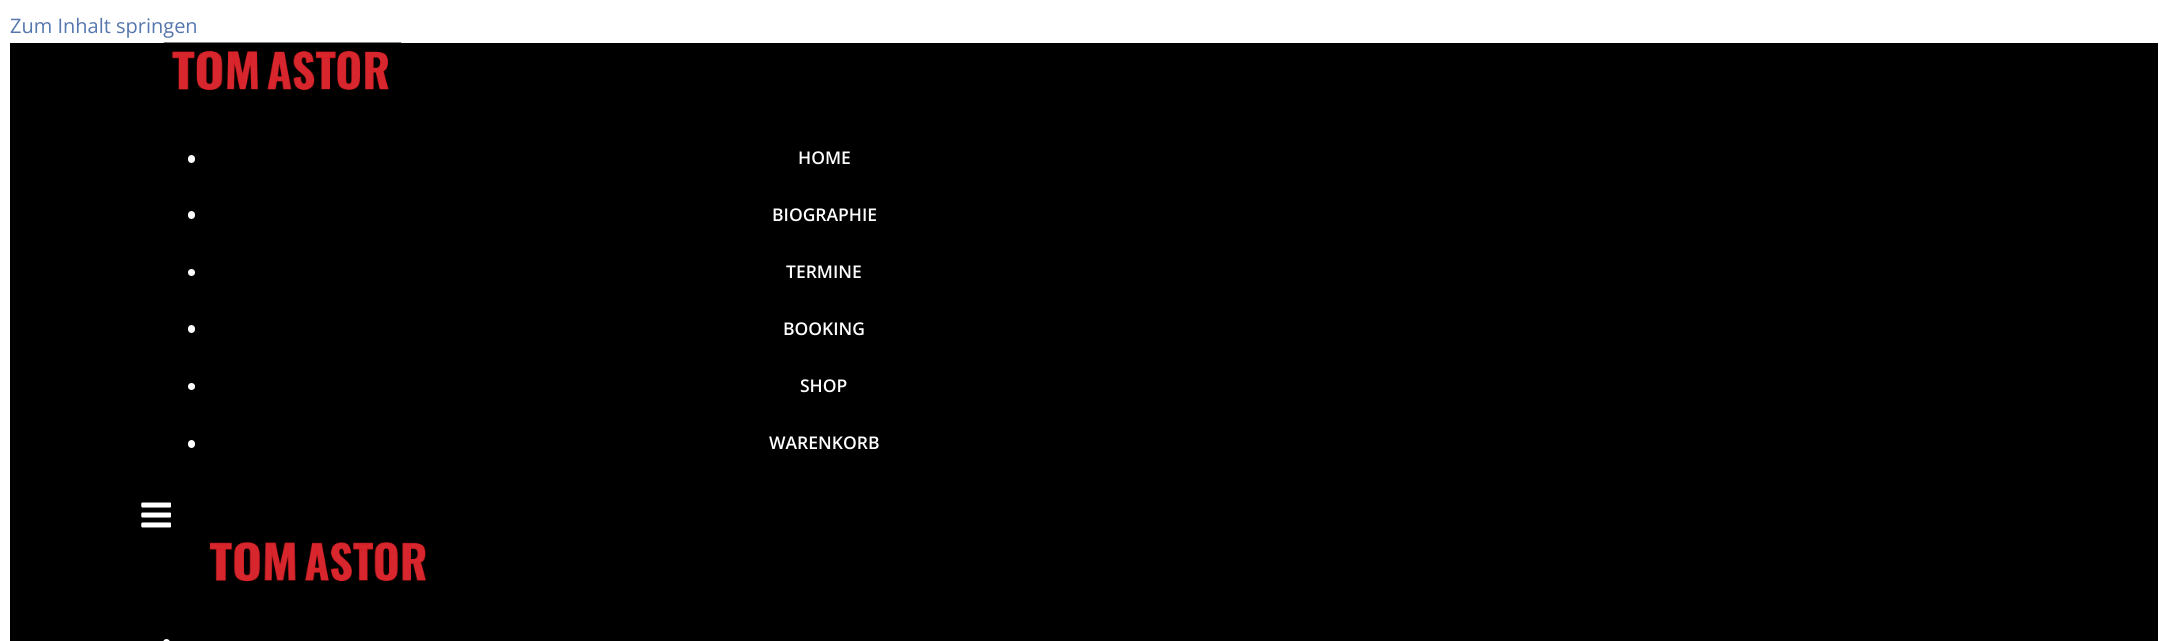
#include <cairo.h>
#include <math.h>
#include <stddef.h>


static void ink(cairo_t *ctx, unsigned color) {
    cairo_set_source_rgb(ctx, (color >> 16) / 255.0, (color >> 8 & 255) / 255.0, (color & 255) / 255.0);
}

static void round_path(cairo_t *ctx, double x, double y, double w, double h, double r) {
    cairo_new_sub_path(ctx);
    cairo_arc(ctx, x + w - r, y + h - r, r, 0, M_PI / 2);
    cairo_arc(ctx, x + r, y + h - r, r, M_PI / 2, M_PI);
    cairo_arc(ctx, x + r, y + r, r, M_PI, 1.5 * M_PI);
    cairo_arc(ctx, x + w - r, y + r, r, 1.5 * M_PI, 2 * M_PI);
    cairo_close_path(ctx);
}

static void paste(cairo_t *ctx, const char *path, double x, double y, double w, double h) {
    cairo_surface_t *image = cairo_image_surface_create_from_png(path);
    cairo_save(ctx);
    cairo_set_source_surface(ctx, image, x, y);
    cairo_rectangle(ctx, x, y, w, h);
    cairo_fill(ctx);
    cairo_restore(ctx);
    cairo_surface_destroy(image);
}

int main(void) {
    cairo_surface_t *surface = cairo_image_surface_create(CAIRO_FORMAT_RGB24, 2167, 641);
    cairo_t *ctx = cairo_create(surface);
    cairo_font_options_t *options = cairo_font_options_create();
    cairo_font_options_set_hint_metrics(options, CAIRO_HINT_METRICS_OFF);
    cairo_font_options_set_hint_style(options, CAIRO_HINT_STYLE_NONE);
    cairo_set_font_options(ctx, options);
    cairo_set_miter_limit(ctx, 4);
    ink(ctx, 0xFFFFFF);
    cairo_paint(ctx);
    cairo_select_font_face(ctx, "Open Sans", CAIRO_FONT_SLANT_NORMAL, CAIRO_FONT_WEIGHT_NORMAL);
    cairo_set_font_size(ctx, 20);
    ink(ctx, 0x5577AD);
    cairo_move_to(ctx, 10, 33);
    cairo_show_text(ctx, "Zum Inhalt springen");
    ink(ctx, 0x000000);
    cairo_rectangle(ctx, 10, 43, 2148, 598);
    cairo_fill(ctx);
    paste(ctx, "media/1.png", 163, 42, 239, 49);
    ink(ctx, 0xFFFEFE);
    round_path(ctx, 188, 155, 7, 8, 3.5);
    cairo_fill(ctx);
    cairo_select_font_face(ctx, "Open Sans SemiBold", CAIRO_FONT_SLANT_NORMAL, CAIRO_FONT_WEIGHT_NORMAL);
    cairo_set_font_size(ctx, 17.5);
    cairo_move_to(ctx, 798, 164);
    cairo_show_text(ctx, "HOME");
    round_path(ctx, 188, 211, 7, 8, 3.5);
    cairo_fill(ctx);
    cairo_move_to(ctx, 772, 221);
    cairo_show_text(ctx, "BIOGRAPHIE");
    cairo_new_path(ctx);
    cairo_arc(ctx, 191.5, 272.5, 3.5, 0, 2 * M_PI);
    cairo_fill(ctx);
    cairo_move_to(ctx, 786, 278);
    cairo_show_text(ctx, "TERMINE");
    round_path(ctx, 188, 325, 7, 8, 3.5);
    cairo_fill(ctx);
    cairo_move_to(ctx, 783, 335);
    cairo_show_text(ctx, "BOOKING");
    cairo_new_path(ctx);
    cairo_arc(ctx, 191.5, 386.5, 3.5, 0, 2 * M_PI);
    cairo_fill(ctx);
    cairo_move_to(ctx, 800, 392);
    cairo_show_text(ctx, "SHOP");
    round_path(ctx, 188, 440, 7, 8, 3.5);
    cairo_fill(ctx);
    cairo_move_to(ctx, 769, 449);
    cairo_show_text(ctx, "WARENKORB");
    paste(ctx, "media/2.png", 141, 502, 30, 26);
    paste(ctx, "media/3.png", 209, 541, 217, 41);
    round_path(ctx, 163, 639, 7, 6, 3.5);
    cairo_fill(ctx);
    cairo_surface_write_to_png(surface, "image.png");
    cairo_font_options_destroy(options);
    cairo_destroy(ctx);
    cairo_surface_destroy(surface);
    return 0;
}
